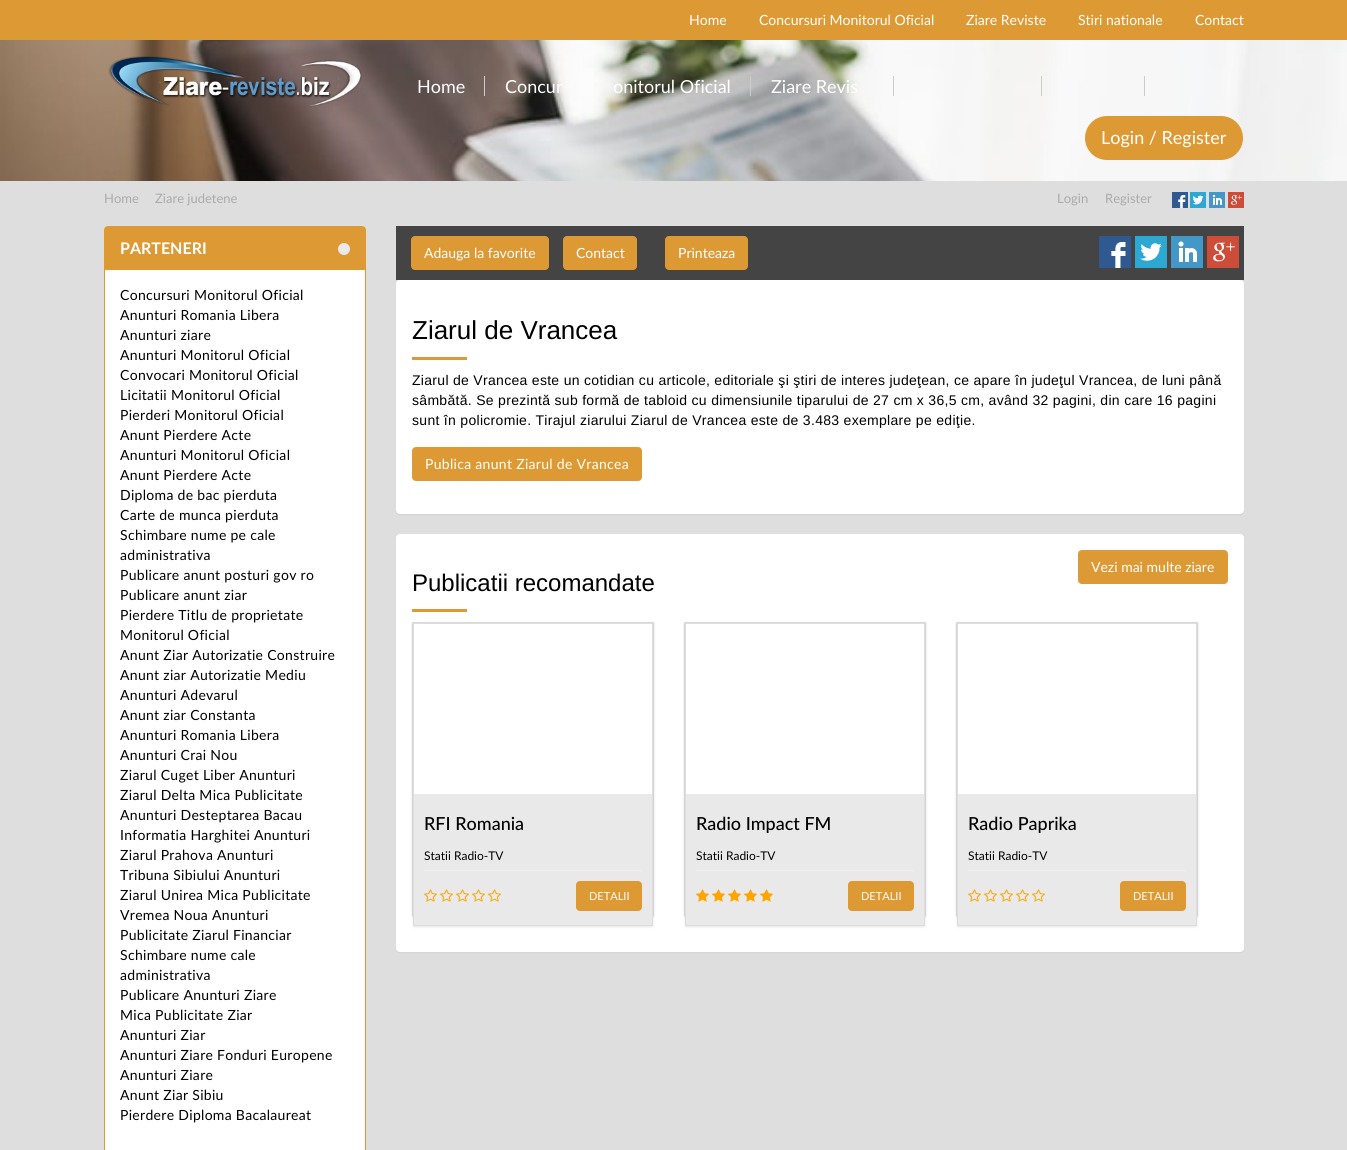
#include <cairo.h>
#include <math.h>
#include <stddef.h>

typedef struct { double x, y; const char *s; } line_t;
typedef struct { double x, y, w, h; unsigned color; } box_t;

static void ink(cairo_t *ctx, unsigned color) {
    cairo_set_source_rgb(ctx, (color >> 16) / 255.0, (color >> 8 & 255) / 255.0, (color & 255) / 255.0);
}

static void write_spaced(cairo_t *ctx, double x, double y, const char *s, double letter, double word) {
    cairo_move_to(ctx, x, y);
    while (*s) {
        char ch[5] = {0};
        int n = 0;
        do ch[n++] = *s++; while ((*s & 0xC0) == 0x80);
        cairo_show_text(ctx, ch);
        cairo_rel_move_to(ctx, letter + word * (*ch == ' '), 0);
    }
}

static void round_path(cairo_t *ctx, double x, double y, double w, double h, double r) {
    cairo_new_sub_path(ctx);
    cairo_arc(ctx, x + w - r, y + h - r, r, 0, M_PI / 2);
    cairo_arc(ctx, x + r, y + h - r, r, M_PI / 2, M_PI);
    cairo_arc(ctx, x + r, y + r, r, M_PI, 1.5 * M_PI);
    cairo_arc(ctx, x + w - r, y + r, r, 1.5 * M_PI, 2 * M_PI);
    cairo_close_path(ctx);
}

static void blur_box(cairo_t *ctx, double x, double y, double w, double h, double r, double blur, double alpha) {
    cairo_push_group_with_content(ctx, CAIRO_CONTENT_ALPHA);
    cairo_set_operator(ctx, CAIRO_OPERATOR_SOURCE);
    for (int i = 15; i >= -15 && fmin(w, h) + blur * i / 3 > 0; i -= 2) {
        double e = blur * i / 6;
        cairo_set_source_rgba(ctx, 0, 0, 0, alpha * erfc((i - 1) / 8.5) / 2);
        round_path(ctx, x - e, y - e, w + 2 * e, h + 2 * e, fmax(0, fmin(r + e + blur * .6, fmin(w, h) / 2 + e)));
        cairo_fill(ctx);
    }
    cairo_pattern_t *soft = cairo_pop_group(ctx);
    cairo_mask(ctx, soft);
    cairo_pattern_destroy(soft);
}

static void paste(cairo_t *ctx, const char *path, double x, double y, double w, double h) {
    cairo_surface_t *image = cairo_image_surface_create_from_png(path);
    cairo_save(ctx);
    cairo_set_source_surface(ctx, image, x, y);
    cairo_rectangle(ctx, x, y, w, h);
    cairo_fill(ctx);
    cairo_restore(ctx);
    cairo_surface_destroy(image);
}

int main(void) {
    cairo_surface_t *surface = cairo_image_surface_create(CAIRO_FORMAT_RGB24, 1347, 1150);
    cairo_t *ctx = cairo_create(surface);
    cairo_font_options_t *options = cairo_font_options_create();
    cairo_font_options_set_hint_metrics(options, CAIRO_HINT_METRICS_OFF);
    cairo_font_options_set_hint_style(options, CAIRO_HINT_STYLE_NONE);
    cairo_set_font_options(ctx, options);
    cairo_set_miter_limit(ctx, 4);
    ink(ctx, 0xDD9933);
    cairo_paint(ctx);
    cairo_select_font_face(ctx, "Lato", CAIRO_FONT_SLANT_NORMAL, CAIRO_FONT_WEIGHT_NORMAL);
    cairo_set_font_size(ctx, 14);
    ink(ctx, 0xFFFFFF);
    {
        static const line_t items[] = {
            {689, 25, "Home"},
            {759, 25, "Concursuri Monitorul Oficial"},
            {966, 25, "Ziare Reviste"},
            {1078, 25, "Stiri nationale"},
            {1195, 25, "Contact"},
        };
        for (size_t i = 0; i < sizeof items / sizeof *items; i++) {
            cairo_move_to(ctx, items[i].x, items[i].y);
            cairo_show_text(ctx, items[i].s);
        }
    }
    paste(ctx, "media/1.png", 0, 40, 1347, 141);
    paste(ctx, "media/2.png", 108, 56, 254, 51);
    cairo_set_font_size(ctx, 18);
    cairo_move_to(ctx, 417, 93);
    cairo_show_text(ctx, "Home");
    ink(ctx, 0xCCCCCC);
    cairo_rectangle(ctx, 484, 76, 1, 20);
    cairo_fill(ctx);
    ink(ctx, 0xFFFFFF);
    cairo_move_to(ctx, 505, 93);
    cairo_show_text(ctx, "Concur");
    cairo_move_to(ctx, 613, 93);
    cairo_show_text(ctx, "onitorul Oficial");
    ink(ctx, 0xCCCCCC);
    cairo_rectangle(ctx, 750, 76, 1, 20);
    cairo_fill(ctx);
    ink(ctx, 0xFFFFFF);
    cairo_move_to(ctx, 771, 93);
    cairo_show_text(ctx, "Ziare Revis");
    {
        static const box_t items[] = {
            {893, 76, 1, 20, 0xCCCCCC},
            {1041, 76, 1, 20, 0xCCCCCC},
            {1144, 76, 1, 20, 0xCCCCCC},
        };
        for (size_t i = 0; i < sizeof items / sizeof *items; i++) {
            ink(ctx, items[i].color);
            cairo_rectangle(ctx, items[i].x, items[i].y, items[i].w, items[i].h);
            cairo_fill(ctx);
        }
    }
    ink(ctx, 0xDD9933);
    round_path(ctx, 1085, 116, 158, 44, 22);
    cairo_fill(ctx);
    ink(ctx, 0xFFFFFF);
    cairo_move_to(ctx, 1101, 144);
    cairo_show_text(ctx, "Login / Register");
    ink(ctx, 0xDEDEDE);
    cairo_rectangle(ctx, 0, 181, 1347, 969);
    cairo_fill(ctx);
    cairo_set_font_size(ctx, 13);
    ink(ctx, 0xAAAAAA);
    {
        static const line_t items[] = {
            {104, 203, "Home"},
            {155, 203, "Ziare judetene"},
            {1057, 203, "Login"},
            {1105, 203, "Register"},
        };
        for (size_t i = 0; i < sizeof items / sizeof *items; i++) {
            cairo_move_to(ctx, items[i].x, items[i].y);
            cairo_show_text(ctx, items[i].s);
        }
    }
    paste(ctx, "media/3.png", 1172, 192, 16, 16);
    paste(ctx, "media/4.png", 1190, 192, 16, 16);
    paste(ctx, "media/5.png", 1209, 192, 16, 16);
    paste(ctx, "media/6.png", 1228, 192, 16, 16);
    ink(ctx, 0xFFFFFF);
    round_path(ctx, 104.5, 226.5, 261, 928, 3.5);
    cairo_fill_preserve(ctx);
    ink(ctx, 0xDD9933);
    cairo_set_line_width(ctx, 1);
    cairo_stroke(ctx);
    cairo_rectangle(ctx, 105, 227, 260, 43);
    cairo_fill(ctx);
    cairo_select_font_face(ctx, "Lato", CAIRO_FONT_SLANT_NORMAL, CAIRO_FONT_WEIGHT_BOLD);
    cairo_set_font_size(ctx, 16);
    ink(ctx, 0xFFFFFF);
    cairo_move_to(ctx, 120, 254);
    cairo_show_text(ctx, "PARTENERI");
    paste(ctx, "media/7.png", 338, 243, 12, 12);
    cairo_select_font_face(ctx, "Lato", CAIRO_FONT_SLANT_NORMAL, CAIRO_FONT_WEIGHT_NORMAL);
    cairo_set_font_size(ctx, 14);
    ink(ctx, 0x000000);
    {
        static const line_t items[] = {
            {120, 300, "Concursuri Monitorul Oficial"},
            {120, 320, "Anunturi Romania Libera"},
            {120, 340, "Anunturi ziare"},
            {120, 360, "Anunturi Monitorul Oficial"},
            {120, 380, "Convocari Monitorul Oficial"},
            {120, 400, "Licitatii Monitorul Oficial"},
            {120, 420, "Pierderi Monitorul Oficial"},
            {120, 440, "Anunt Pierdere Acte"},
            {120, 460, "Anunturi Monitorul Oficial"},
            {120, 480, "Anunt Pierdere Acte"},
            {120, 500, "Diploma de bac pierduta"},
            {120, 520, "Carte de munca pierduta"},
            {120, 540, "Schimbare nume pe cale"},
            {120, 560, "administrativa"},
            {120, 580, "Publicare anunt posturi gov ro"},
            {120, 600, "Publicare anunt ziar"},
            {120, 620, "Pierdere Titlu de proprietate"},
            {120, 640, "Monitorul Oficial"},
            {120, 660, "Anunt Ziar Autorizatie Construire"},
            {120, 680, "Anunt ziar Autorizatie Mediu"},
            {120, 700, "Anunturi Adevarul"},
            {120, 720, "Anunt ziar Constanta"},
            {120, 740, "Anunturi Romania Libera"},
            {120, 760, "Anunturi Crai Nou"},
            {120, 780, "Ziarul Cuget Liber Anunturi"},
            {120, 800, "Ziarul Delta Mica Publicitate"},
            {120, 820, "Anunturi Desteptarea Bacau"},
            {120, 840, "Informatia Harghitei Anunturi"},
            {120, 860, "Ziarul Prahova Anunturi"},
            {120, 880, "Tribuna Sibiului Anunturi"},
            {120, 900, "Ziarul Unirea Mica Publicitate"},
            {120, 920, "Vremea Noua Anunturi"},
            {120, 940, "Publicitate Ziarul Financiar"},
            {120, 960, "Schimbare nume cale"},
            {120, 980, "administrativa"},
            {120, 1000, "Publicare Anunturi Ziare"},
            {120, 1020, "Mica Publicitate Ziar"},
            {120, 1040, "Anunturi Ziar"},
            {120, 1060, "Anunturi Ziare Fonduri Europene"},
            {120, 1080, "Anunturi Ziare"},
            {120, 1100, "Anunt Ziar Sibiu"},
            {120, 1120, "Pierdere Diploma Bacalaureat"},
        };
        for (size_t i = 0; i < sizeof items / sizeof *items; i++) {
            write_spaced(ctx, items[i].x, items[i].y, items[i].s, 0.3, 0);
        }
    }
    ink(ctx, 0x444444);
    cairo_rectangle(ctx, 396, 226, 848, 54);
    cairo_fill(ctx);
    ink(ctx, 0xDD9933);
    round_path(ctx, 411.5, 236.5, 137, 33, 3.5);
    cairo_fill_preserve(ctx);
    cairo_stroke(ctx);
    ink(ctx, 0xFFFFFF);
    cairo_move_to(ctx, 424, 258);
    cairo_show_text(ctx, "Adauga la favorite");
    ink(ctx, 0xDD9933);
    round_path(ctx, 563.5, 236.5, 73, 33, 3.5);
    cairo_fill_preserve(ctx);
    cairo_stroke(ctx);
    ink(ctx, 0xFFFFFF);
    cairo_move_to(ctx, 576, 258);
    cairo_show_text(ctx, "Contact");
    ink(ctx, 0xDD9933);
    round_path(ctx, 665.5, 236.5, 82, 33, 3.5);
    cairo_fill_preserve(ctx);
    cairo_stroke(ctx);
    ink(ctx, 0xFFFFFF);
    cairo_move_to(ctx, 678, 258);
    cairo_show_text(ctx, "Printeaza");
    paste(ctx, "media/8.png", 1099, 236, 32, 32);
    paste(ctx, "media/9.png", 1135, 236, 32, 32);
    paste(ctx, "media/10.png", 1171, 236, 32, 32);
    paste(ctx, "media/11.png", 1207, 236, 32, 32);
    ink(ctx, 0x000000);
    blur_box(ctx, 396, 281, 848, 234, 4, 0.5, 0.05);
    ink(ctx, 0xFFFFFF);
    round_path(ctx, 396, 280, 848, 234, 4);
    cairo_fill(ctx);
    cairo_select_font_face(ctx, "Liberation Sans", CAIRO_FONT_SLANT_NORMAL, CAIRO_FONT_WEIGHT_NORMAL);
    cairo_set_font_size(ctx, 26);
    ink(ctx, 0x000000);
    cairo_move_to(ctx, 412, 339);
    cairo_show_text(ctx, "Ziarul de Vrancea");
    ink(ctx, 0xDD9933);
    cairo_rectangle(ctx, 412, 357, 55, 3);
    cairo_fill(ctx);
    cairo_set_font_size(ctx, 14);
    ink(ctx, 0x000000);
    {
        static const line_t items[] = {
            {412, 385, "Ziarul de Vrancea este un cotidian cu articole, editoriale şi ştiri de interes judeţean, ce apare în judeţul Vrancea, de luni până"},
            {412, 405, "sâmbătă. Se prezintă sub formă de tabloid cu dimensiunile tiparului de 27 cm x 36,5 cm, având 32 pagini, din care 16 pagini"},
            {412, 425, "sunt în policromie. Tirajul ziarului Ziarul de Vrancea este de 3.483 exemplare pe ediţie."},
        };
        for (size_t i = 0; i < sizeof items / sizeof *items; i++) {
            write_spaced(ctx, items[i].x, items[i].y, items[i].s, 0.3, 0);
        }
    }
    ink(ctx, 0xDD9933);
    round_path(ctx, 412.5, 447.5, 229, 33, 3.5);
    cairo_fill_preserve(ctx);
    cairo_stroke(ctx);
    cairo_select_font_face(ctx, "Lato", CAIRO_FONT_SLANT_NORMAL, CAIRO_FONT_WEIGHT_NORMAL);
    ink(ctx, 0xFFFFFF);
    write_spaced(ctx, 425, 469, "Publica anunt Ziarul de Vrancea", 0.3, 0);
    ink(ctx, 0x000000);
    blur_box(ctx, 396, 535, 848, 418, 4, 0.5, 0.05);
    ink(ctx, 0xFFFFFF);
    round_path(ctx, 396, 534, 848, 418, 4);
    cairo_fill(ctx);
    ink(ctx, 0xDD9933);
    round_path(ctx, 1078.5, 550.5, 149, 33, 3.5);
    cairo_fill_preserve(ctx);
    cairo_stroke(ctx);
    ink(ctx, 0xFFFFFF);
    cairo_move_to(ctx, 1091, 572);
    cairo_show_text(ctx, "Vezi mai multe ziare");
    cairo_select_font_face(ctx, "Liberation Sans", CAIRO_FONT_SLANT_NORMAL, CAIRO_FONT_WEIGHT_NORMAL);
    cairo_set_font_size(ctx, 24);
    ink(ctx, 0x000000);
    cairo_move_to(ctx, 412, 591);
    cairo_show_text(ctx, "Publicatii recomandate");
    ink(ctx, 0xDD9933);
    cairo_rectangle(ctx, 412, 609, 55, 3);
    cairo_fill(ctx);
    ink(ctx, 0x000000);
    blur_box(ctx, 412, 623, 242, 294, 0, 1, 0.1);
    cairo_rectangle(ctx, 412.5, 622.5, 241, 293);
    ink(ctx, 0xDDDDDD);
    cairo_stroke(ctx);
    ink(ctx, 0x000000);
    blur_box(ctx, 413, 624, 240, 303, 0, 1, 0.1);
    ink(ctx, 0xFFFFFF);
    cairo_rectangle(ctx, 414, 624, 238, 170);
    cairo_fill(ctx);
    cairo_rectangle(ctx, 413.5, 623.5, 239, 302);
    ink(ctx, 0xDDDDDD);
    cairo_stroke(ctx);
    ink(ctx, 0xEAE9E9);
    cairo_rectangle(ctx, 414, 794, 238, 131);
    cairo_fill(ctx);
    cairo_select_font_face(ctx, "Lato Medium", CAIRO_FONT_SLANT_NORMAL, CAIRO_FONT_WEIGHT_NORMAL);
    cairo_set_font_size(ctx, 18);
    ink(ctx, 0x000000);
    cairo_move_to(ctx, 424, 830);
    cairo_show_text(ctx, "RFI Romania");
    cairo_select_font_face(ctx, "Lato", CAIRO_FONT_SLANT_NORMAL, CAIRO_FONT_WEIGHT_NORMAL);
    cairo_set_font_size(ctx, 12);
    cairo_move_to(ctx, 424, 860);
    cairo_show_text(ctx, "Statii Radio-TV");
    ink(ctx, 0xEFEFEF);
    cairo_rectangle(ctx, 424, 870, 218, 1);
    cairo_fill(ctx);
    paste(ctx, "media/12.png", 424, 889, 13, 13);
    paste(ctx, "media/12.png", 440, 889, 13, 13);
    paste(ctx, "media/12.png", 456, 889, 13, 13);
    paste(ctx, "media/12.png", 472, 889, 13, 13);
    paste(ctx, "media/12.png", 488, 889, 13, 13);
    ink(ctx, 0xDD9933);
    round_path(ctx, 576.5, 881.5, 65, 29, 3.5);
    cairo_fill_preserve(ctx);
    cairo_stroke(ctx);
    cairo_set_font_size(ctx, 11);
    ink(ctx, 0xFFFFFF);
    cairo_move_to(ctx, 589, 900);
    cairo_show_text(ctx, "DETALII");
    ink(ctx, 0x000000);
    blur_box(ctx, 684, 623, 242, 294, 0, 1, 0.1);
    cairo_rectangle(ctx, 684.5, 622.5, 241, 293);
    ink(ctx, 0xDDDDDD);
    cairo_stroke(ctx);
    ink(ctx, 0x000000);
    blur_box(ctx, 685, 624, 240, 303, 0, 1, 0.1);
    ink(ctx, 0xFFFFFF);
    cairo_rectangle(ctx, 686, 624, 238, 170);
    cairo_fill(ctx);
    cairo_rectangle(ctx, 685.5, 623.5, 239, 302);
    ink(ctx, 0xDDDDDD);
    cairo_stroke(ctx);
    ink(ctx, 0xEAE9E9);
    cairo_rectangle(ctx, 686, 794, 238, 131);
    cairo_fill(ctx);
    cairo_select_font_face(ctx, "Lato Medium", CAIRO_FONT_SLANT_NORMAL, CAIRO_FONT_WEIGHT_NORMAL);
    cairo_set_font_size(ctx, 18);
    ink(ctx, 0x000000);
    cairo_move_to(ctx, 696, 830);
    cairo_show_text(ctx, "Radio Impact FM");
    cairo_select_font_face(ctx, "Lato", CAIRO_FONT_SLANT_NORMAL, CAIRO_FONT_WEIGHT_NORMAL);
    cairo_set_font_size(ctx, 12);
    cairo_move_to(ctx, 696, 860);
    cairo_show_text(ctx, "Statii Radio-TV");
    ink(ctx, 0xEFEFEF);
    cairo_rectangle(ctx, 696, 870, 218, 1);
    cairo_fill(ctx);
    paste(ctx, "media/13.png", 696, 889, 13, 13);
    paste(ctx, "media/13.png", 712, 889, 13, 13);
    paste(ctx, "media/13.png", 728, 889, 13, 13);
    paste(ctx, "media/13.png", 744, 889, 13, 13);
    paste(ctx, "media/13.png", 760, 889, 13, 13);
    ink(ctx, 0xDD9933);
    round_path(ctx, 848.5, 881.5, 65, 29, 3.5);
    cairo_fill_preserve(ctx);
    cairo_stroke(ctx);
    cairo_set_font_size(ctx, 11);
    ink(ctx, 0xFFFFFF);
    cairo_move_to(ctx, 861, 900);
    cairo_show_text(ctx, "DETALII");
    ink(ctx, 0x000000);
    blur_box(ctx, 956, 623, 242, 294, 0, 1, 0.1);
    cairo_rectangle(ctx, 956.5, 622.5, 241, 293);
    ink(ctx, 0xDDDDDD);
    cairo_stroke(ctx);
    ink(ctx, 0x000000);
    blur_box(ctx, 957, 624, 240, 303, 0, 1, 0.1);
    ink(ctx, 0xFFFFFF);
    cairo_rectangle(ctx, 958, 624, 238, 170);
    cairo_fill(ctx);
    cairo_rectangle(ctx, 957.5, 623.5, 239, 302);
    ink(ctx, 0xDDDDDD);
    cairo_stroke(ctx);
    ink(ctx, 0xEAE9E9);
    cairo_rectangle(ctx, 958, 794, 238, 131);
    cairo_fill(ctx);
    cairo_select_font_face(ctx, "Lato Medium", CAIRO_FONT_SLANT_NORMAL, CAIRO_FONT_WEIGHT_NORMAL);
    cairo_set_font_size(ctx, 18);
    ink(ctx, 0x000000);
    cairo_move_to(ctx, 968, 830);
    cairo_show_text(ctx, "Radio Paprika");
    cairo_select_font_face(ctx, "Lato", CAIRO_FONT_SLANT_NORMAL, CAIRO_FONT_WEIGHT_NORMAL);
    cairo_set_font_size(ctx, 12);
    cairo_move_to(ctx, 968, 860);
    cairo_show_text(ctx, "Statii Radio-TV");
    ink(ctx, 0xEFEFEF);
    cairo_rectangle(ctx, 968, 870, 218, 1);
    cairo_fill(ctx);
    paste(ctx, "media/12.png", 968, 889, 13, 13);
    paste(ctx, "media/12.png", 984, 889, 13, 13);
    paste(ctx, "media/12.png", 1000, 889, 13, 13);
    paste(ctx, "media/12.png", 1016, 889, 13, 13);
    paste(ctx, "media/12.png", 1032, 889, 13, 13);
    ink(ctx, 0xDD9933);
    round_path(ctx, 1120.5, 881.5, 65, 29, 3.5);
    cairo_fill_preserve(ctx);
    cairo_stroke(ctx);
    cairo_set_font_size(ctx, 11);
    ink(ctx, 0xFFFFFF);
    cairo_move_to(ctx, 1133, 900);
    cairo_show_text(ctx, "DETALII");
    cairo_surface_write_to_png(surface, "image.png");
    cairo_font_options_destroy(options);
    cairo_destroy(ctx);
    cairo_surface_destroy(surface);
    return 0;
}
